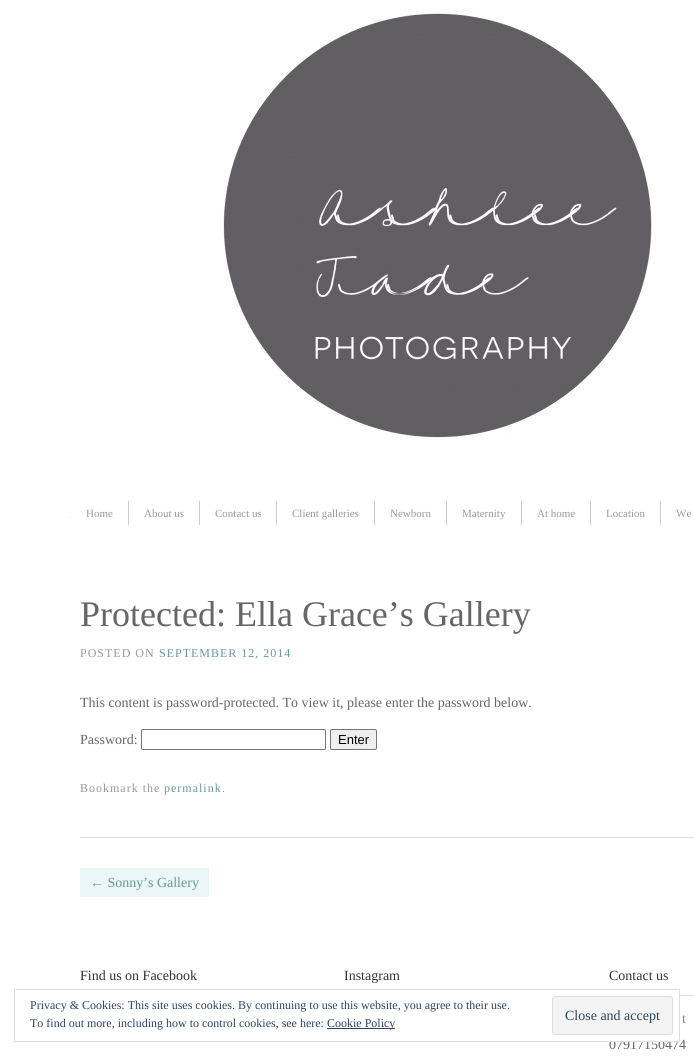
#include <cairo.h>
#include <math.h>
#include <stddef.h>


static void ink(cairo_t *ctx, unsigned color) {
    cairo_set_source_rgb(ctx, (color >> 16) / 255.0, (color >> 8 & 255) / 255.0, (color & 255) / 255.0);
}

static void write_spaced(cairo_t *ctx, double x, double y, const char *s, double letter, double word) {
    cairo_move_to(ctx, x, y);
    while (*s) {
        char ch[5] = {0};
        int n = 0;
        do ch[n++] = *s++; while ((*s & 0xC0) == 0x80);
        cairo_show_text(ctx, ch);
        cairo_rel_move_to(ctx, letter + word * (*ch == ' '), 0);
    }
}

static void round_path(cairo_t *ctx, double x, double y, double w, double h, double r) {
    cairo_new_sub_path(ctx);
    cairo_arc(ctx, x + w - r, y + h - r, r, 0, M_PI / 2);
    cairo_arc(ctx, x + r, y + h - r, r, M_PI / 2, M_PI);
    cairo_arc(ctx, x + r, y + r, r, M_PI, 1.5 * M_PI);
    cairo_arc(ctx, x + w - r, y + r, r, 1.5 * M_PI, 2 * M_PI);
    cairo_close_path(ctx);
}

static void paste(cairo_t *ctx, const char *path, double x, double y, double w, double h) {
    cairo_surface_t *image = cairo_image_surface_create_from_png(path);
    cairo_save(ctx);
    cairo_set_source_surface(ctx, image, x, y);
    cairo_rectangle(ctx, x, y, w, h);
    cairo_fill(ctx);
    cairo_restore(ctx);
    cairo_surface_destroy(image);
}

int main(void) {
    cairo_surface_t *surface = cairo_image_surface_create(CAIRO_FORMAT_RGB24, 694, 1056);
    cairo_t *ctx = cairo_create(surface);
    cairo_font_options_t *options = cairo_font_options_create();
    cairo_font_options_set_hint_metrics(options, CAIRO_HINT_METRICS_OFF);
    cairo_font_options_set_hint_style(options, CAIRO_HINT_STYLE_NONE);
    cairo_set_font_options(ctx, options);
    cairo_set_miter_limit(ctx, 4);
    ink(ctx, 0xFFFFFF);
    cairo_paint(ctx);
    paste(ctx, "media/1.png", 223, 8, 433, 432);
    ink(ctx, 0xE7E7E7);
    cairo_rectangle(ctx, 70, 517, 1, 1);
    cairo_fill(ctx);
    cairo_select_font_face(ctx, "Liberation Serif", CAIRO_FONT_SLANT_NORMAL, CAIRO_FONT_WEIGHT_NORMAL);
    cairo_set_font_size(ctx, 11);
    ink(ctx, 0x999999);
    cairo_move_to(ctx, 86, 517);
    cairo_show_text(ctx, "Home");
    ink(ctx, 0xCCCCCC);
    cairo_rectangle(ctx, 128, 501, 1, 24);
    cairo_fill(ctx);
    ink(ctx, 0x999999);
    cairo_move_to(ctx, 144, 517);
    cairo_show_text(ctx, "About us");
    ink(ctx, 0xCCCCCC);
    cairo_rectangle(ctx, 199, 501, 1, 24);
    cairo_fill(ctx);
    ink(ctx, 0x999999);
    cairo_move_to(ctx, 215, 517);
    cairo_show_text(ctx, "Contact us");
    ink(ctx, 0xCCCCCC);
    cairo_rectangle(ctx, 276, 501, 1, 24);
    cairo_fill(ctx);
    ink(ctx, 0x999999);
    cairo_move_to(ctx, 292, 517);
    cairo_show_text(ctx, "Client galleries");
    ink(ctx, 0xCCCCCC);
    cairo_rectangle(ctx, 374, 501, 1, 24);
    cairo_fill(ctx);
    ink(ctx, 0x999999);
    cairo_move_to(ctx, 390, 517);
    cairo_show_text(ctx, "Newborn");
    ink(ctx, 0xCCCCCC);
    cairo_rectangle(ctx, 446, 501, 1, 24);
    cairo_fill(ctx);
    ink(ctx, 0x999999);
    cairo_move_to(ctx, 462, 517);
    cairo_show_text(ctx, "Maternity");
    ink(ctx, 0xCCCCCC);
    cairo_rectangle(ctx, 521, 501, 1, 24);
    cairo_fill(ctx);
    ink(ctx, 0x999999);
    cairo_move_to(ctx, 537, 517);
    cairo_show_text(ctx, "At home");
    ink(ctx, 0xCCCCCC);
    cairo_rectangle(ctx, 590, 501, 1, 24);
    cairo_fill(ctx);
    ink(ctx, 0x999999);
    cairo_move_to(ctx, 606, 517);
    cairo_show_text(ctx, "Location");
    ink(ctx, 0xCCCCCC);
    cairo_rectangle(ctx, 660, 501, 1, 24);
    cairo_fill(ctx);
    ink(ctx, 0x999999);
    cairo_move_to(ctx, 676, 517);
    cairo_show_text(ctx, "We");
    ink(ctx, 0xDDDDDD);
    cairo_rectangle(ctx, 80, 837, 614, 1);
    cairo_fill(ctx);
    cairo_set_font_size(ctx, 36);
    ink(ctx, 0x666666);
    cairo_move_to(ctx, 80, 626);
    cairo_show_text(ctx, "Protected: Ella Grace’s Gallery");
    cairo_set_font_size(ctx, 12);
    ink(ctx, 0x999999);
    write_spaced(ctx, 80, 657, "POSTED ON", 1, 0);
    ink(ctx, 0x669999);
    write_spaced(ctx, 159, 657, "SEPTEMBER 12, 2014", 1, 0);
    cairo_set_font_size(ctx, 14);
    ink(ctx, 0x666666);
    cairo_move_to(ctx, 80, 707);
    cairo_show_text(ctx, "This content is password-protected. To view it, please enter the password below.");
    cairo_move_to(ctx, 80, 744);
    cairo_show_text(ctx, "Password:");
    round_path(ctx, 141.5, 729.5, 184, 20, 1.5);
    ink(ctx, 0x767676);
    cairo_set_line_width(ctx, 1);
    cairo_stroke(ctx);
    ink(ctx, 0xEFEFEF);
    round_path(ctx, 330.5, 729.5, 46, 20, 1.5);
    cairo_fill_preserve(ctx);
    ink(ctx, 0x767676);
    cairo_stroke(ctx);
    cairo_select_font_face(ctx, "Liberation Sans", CAIRO_FONT_SLANT_NORMAL, CAIRO_FONT_WEIGHT_NORMAL);
    cairo_set_font_size(ctx, 13);
    ink(ctx, 0x000000);
    cairo_move_to(ctx, 338, 744);
    cairo_show_text(ctx, "Enter");
    cairo_select_font_face(ctx, "Liberation Serif", CAIRO_FONT_SLANT_NORMAL, CAIRO_FONT_WEIGHT_NORMAL);
    cairo_set_font_size(ctx, 12);
    ink(ctx, 0x999999);
    write_spaced(ctx, 80, 792, "Bookmark the", 1, 0);
    ink(ctx, 0x669999);
    write_spaced(ctx, 164, 792, "permalink", 1, 0);
    ink(ctx, 0x999999);
    write_spaced(ctx, 222, 792, ".", 1, 0);
    ink(ctx, 0xEAF6F7);
    cairo_rectangle(ctx, 80, 868, 129, 29);
    cairo_fill(ctx);
    cairo_set_font_size(ctx, 14);
    ink(ctx, 0x669999);
    cairo_move_to(ctx, 90, 887);
    cairo_show_text(ctx, "← Sonny’s Gallery");
    ink(ctx, 0x333333);
    cairo_move_to(ctx, 80, 980);
    cairo_show_text(ctx, "Find us on Facebook");
    cairo_move_to(ctx, 344, 980);
    cairo_show_text(ctx, "Instagram");
    ink(ctx, 0xDDDDDD);
    cairo_rectangle(ctx, 680, 995, 14, 1);
    cairo_fill(ctx);
    ink(ctx, 0x333333);
    cairo_move_to(ctx, 609, 980);
    cairo_show_text(ctx, "Contact us");
    ink(ctx, 0x669999);
    cairo_move_to(ctx, 682, 1023);
    cairo_show_text(ctx, "t");
    ink(ctx, 0x666666);
    cairo_move_to(ctx, 609, 1049);
    cairo_show_text(ctx, "07917150474");
    ink(ctx, 0xFFFFFF);
    cairo_rectangle(ctx, 610, 1039, 69, 2);
    cairo_fill(ctx);
    cairo_rectangle(ctx, 14.5, 989.5, 665, 52);
    ink(ctx, 0xDEDEDE);
    cairo_stroke(ctx);
    cairo_set_font_size(ctx, 12);
    ink(ctx, 0x2E4467);
    cairo_move_to(ctx, 30, 1009);
    cairo_show_text(ctx, "Privacy & Cookies: This site uses cookies. By continuing to use this website, you agree to their use.");
    cairo_move_to(ctx, 30, 1027);
    cairo_show_text(ctx, "To find out more, including how to control cookies, see here:");
    cairo_rectangle(ctx, 327, 1028, 68, 1);
    cairo_fill(ctx);
    cairo_move_to(ctx, 327, 1027);
    cairo_show_text(ctx, "Cookie Policy");
    ink(ctx, 0xF3F3F3);
    round_path(ctx, 552.5, 996.5, 120, 38, 2.5);
    cairo_fill_preserve(ctx);
    ink(ctx, 0xDEDEDE);
    cairo_stroke(ctx);
    cairo_set_font_size(ctx, 14);
    ink(ctx, 0x2E4453);
    cairo_move_to(ctx, 565, 1020);
    cairo_show_text(ctx, "Close and accept");
    cairo_surface_write_to_png(surface, "image.png");
    cairo_font_options_destroy(options);
    cairo_destroy(ctx);
    cairo_surface_destroy(surface);
    return 0;
}
